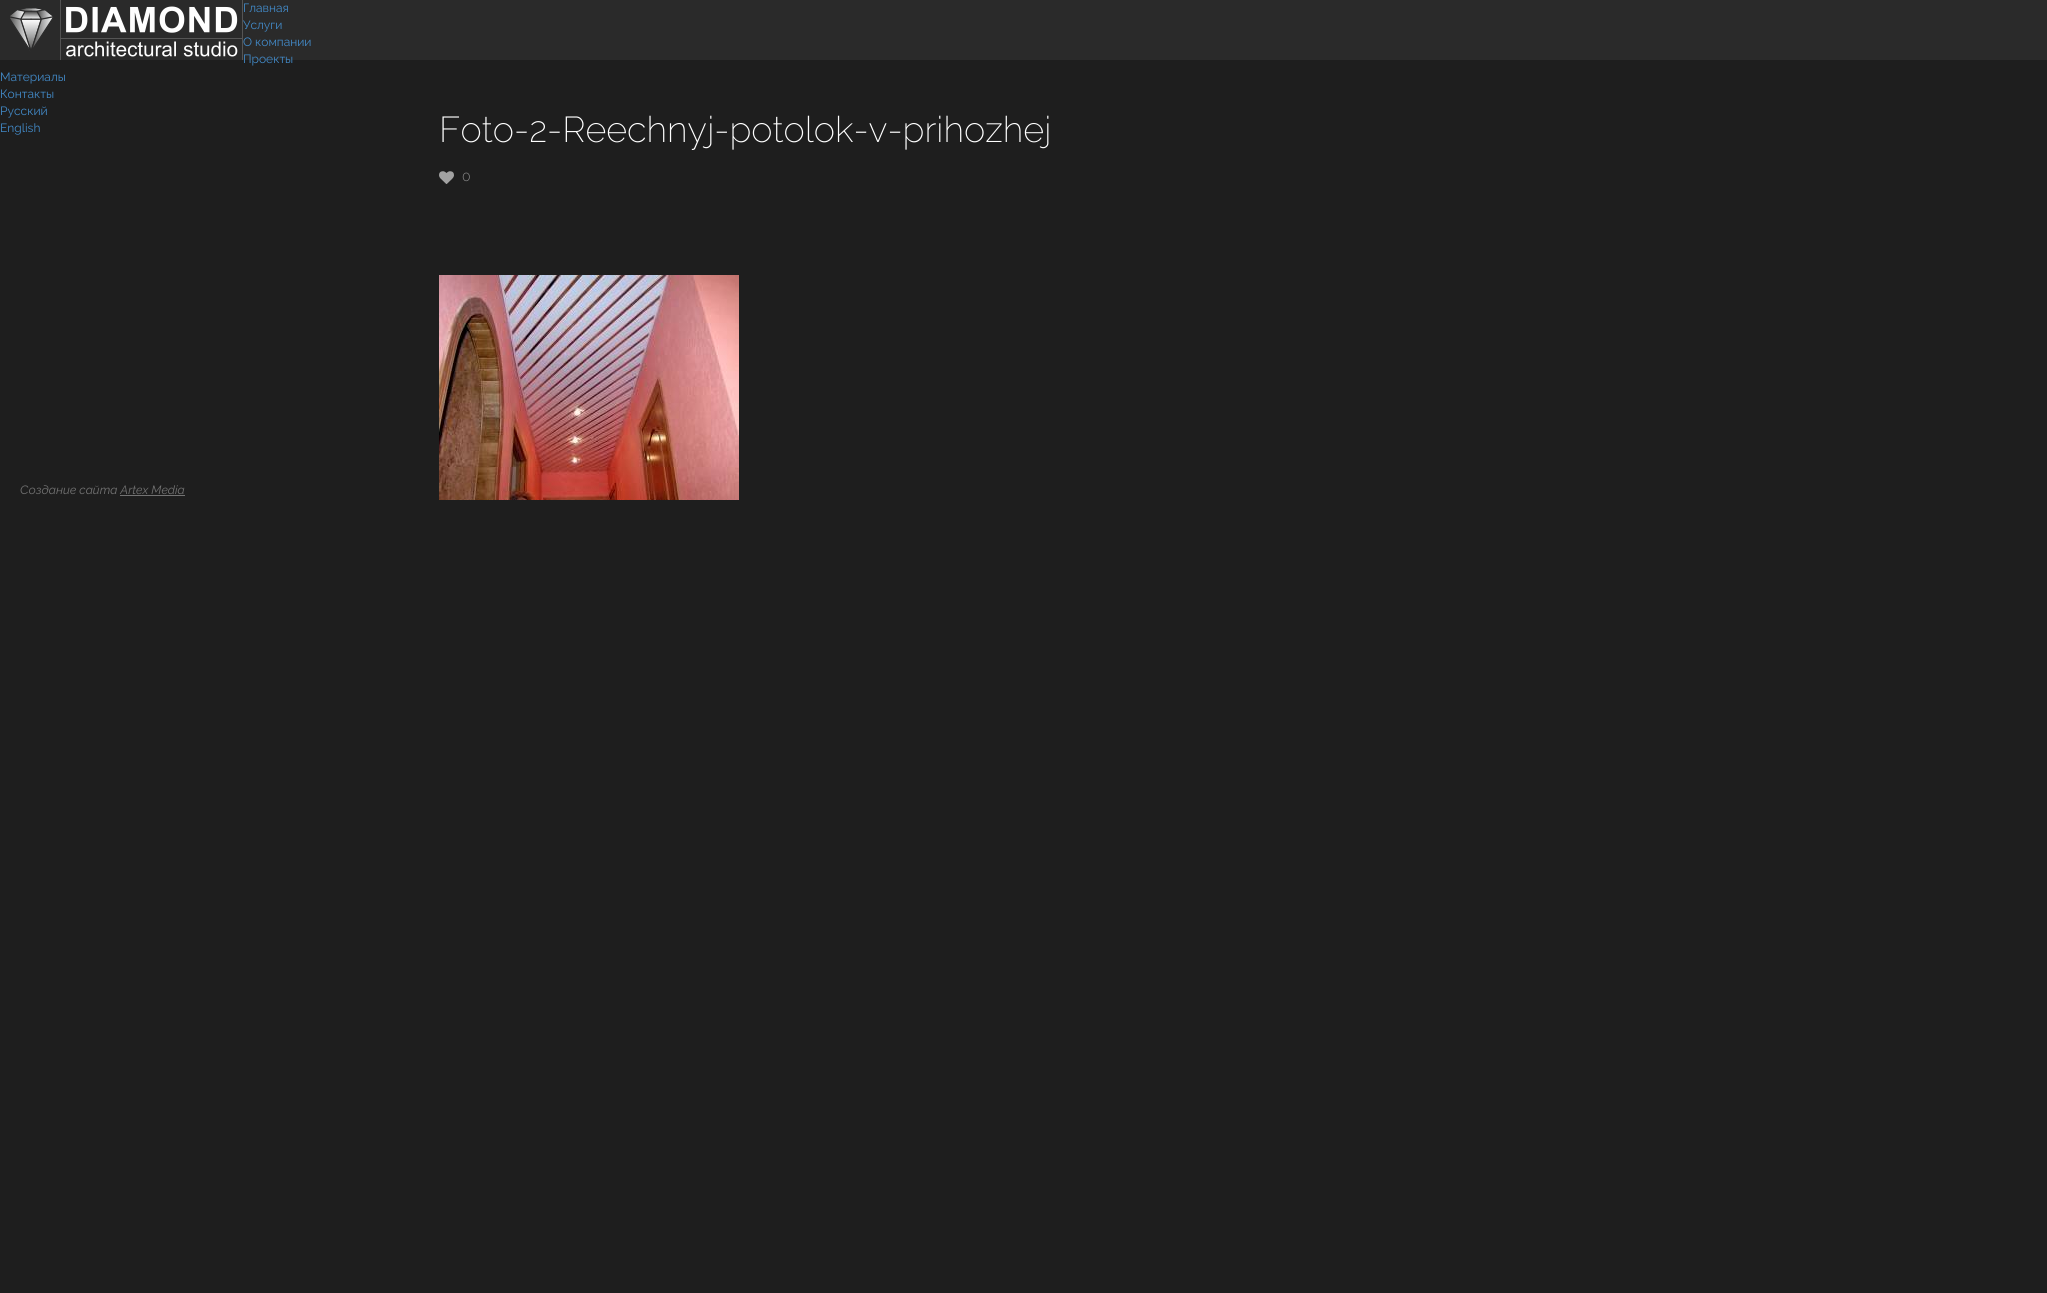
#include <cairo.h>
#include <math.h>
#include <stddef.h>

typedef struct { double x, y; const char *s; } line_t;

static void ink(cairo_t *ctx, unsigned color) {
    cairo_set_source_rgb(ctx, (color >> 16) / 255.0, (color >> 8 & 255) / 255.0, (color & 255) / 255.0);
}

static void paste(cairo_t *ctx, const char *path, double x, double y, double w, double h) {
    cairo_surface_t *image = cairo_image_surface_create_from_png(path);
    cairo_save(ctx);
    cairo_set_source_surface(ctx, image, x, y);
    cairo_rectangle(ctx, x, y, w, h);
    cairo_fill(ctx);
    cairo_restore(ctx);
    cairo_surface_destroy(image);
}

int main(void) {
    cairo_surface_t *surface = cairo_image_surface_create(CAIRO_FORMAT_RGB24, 2047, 1293);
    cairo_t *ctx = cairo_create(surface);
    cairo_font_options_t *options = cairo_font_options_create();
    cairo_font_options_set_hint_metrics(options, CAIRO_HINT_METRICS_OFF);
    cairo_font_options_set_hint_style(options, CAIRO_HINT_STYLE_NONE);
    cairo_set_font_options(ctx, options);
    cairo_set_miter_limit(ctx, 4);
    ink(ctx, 0x1E1E1E);
    cairo_paint(ctx);
    ink(ctx, 0x2A2A2A);
    cairo_rectangle(ctx, 0, 0, 2047, 60);
    cairo_fill(ctx);
    paste(ctx, "media/1.png", 10, 0, 233, 60);
    cairo_select_font_face(ctx, "Raleway", CAIRO_FONT_SLANT_NORMAL, CAIRO_FONT_WEIGHT_NORMAL);
    cairo_set_font_size(ctx, 12);
    ink(ctx, 0x428BCA);
    {
        static const line_t items[] = {
            {243, 12, "Главная"},
            {243, 29, "Услуги"},
            {243, 46, "О компании"},
            {243, 63, "Проекты"},
            {0, 81, "Материалы"},
            {0, 98, "Контакты"},
            {0, 115, "Русский"},
            {0, 132, "English"},
        };
        for (size_t i = 0; i < sizeof items / sizeof *items; i++) {
            cairo_move_to(ctx, items[i].x, items[i].y);
            cairo_show_text(ctx, items[i].s);
        }
    }
    cairo_select_font_face(ctx, "Raleway ExtraLight", CAIRO_FONT_SLANT_NORMAL, CAIRO_FONT_WEIGHT_NORMAL);
    cairo_set_font_size(ctx, 36);
    ink(ctx, 0xFFFFFF);
    cairo_move_to(ctx, 439, 142);
    cairo_show_text(ctx, "Foto-2-Reechnyj-potolok-v-prihozhej");
    paste(ctx, "media/2.png", 439, 171, 15, 13);
    cairo_select_font_face(ctx, "Raleway Light", CAIRO_FONT_SLANT_NORMAL, CAIRO_FONT_WEIGHT_NORMAL);
    cairo_set_font_size(ctx, 14);
    ink(ctx, 0x8B8B8B);
    cairo_move_to(ctx, 462, 181);
    cairo_show_text(ctx, "0");
    paste(ctx, "media/3.png", 439, 275, 300, 225);
    cairo_select_font_face(ctx, "Raleway", CAIRO_FONT_SLANT_ITALIC, CAIRO_FONT_WEIGHT_NORMAL);
    cairo_set_font_size(ctx, 12);
    ink(ctx, 0x737373);
    cairo_move_to(ctx, 20, 494);
    cairo_show_text(ctx, "Создание сайта Artex Media");
    cairo_rectangle(ctx, 120, 495, 65, 1);
    cairo_fill(ctx);
    cairo_surface_write_to_png(surface, "image.png");
    cairo_font_options_destroy(options);
    cairo_destroy(ctx);
    cairo_surface_destroy(surface);
    return 0;
}
